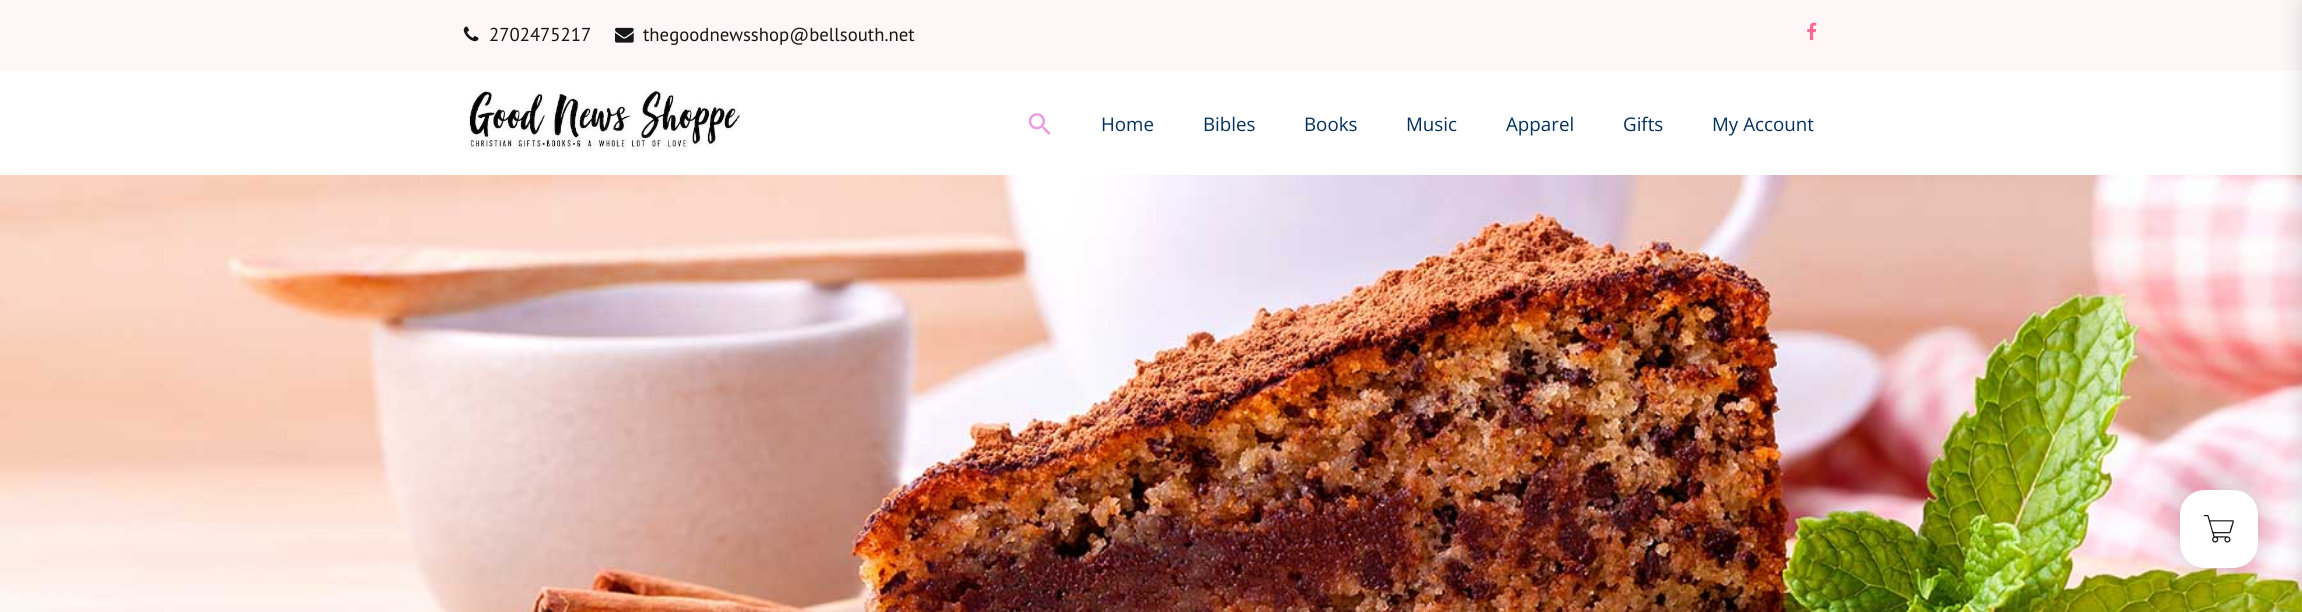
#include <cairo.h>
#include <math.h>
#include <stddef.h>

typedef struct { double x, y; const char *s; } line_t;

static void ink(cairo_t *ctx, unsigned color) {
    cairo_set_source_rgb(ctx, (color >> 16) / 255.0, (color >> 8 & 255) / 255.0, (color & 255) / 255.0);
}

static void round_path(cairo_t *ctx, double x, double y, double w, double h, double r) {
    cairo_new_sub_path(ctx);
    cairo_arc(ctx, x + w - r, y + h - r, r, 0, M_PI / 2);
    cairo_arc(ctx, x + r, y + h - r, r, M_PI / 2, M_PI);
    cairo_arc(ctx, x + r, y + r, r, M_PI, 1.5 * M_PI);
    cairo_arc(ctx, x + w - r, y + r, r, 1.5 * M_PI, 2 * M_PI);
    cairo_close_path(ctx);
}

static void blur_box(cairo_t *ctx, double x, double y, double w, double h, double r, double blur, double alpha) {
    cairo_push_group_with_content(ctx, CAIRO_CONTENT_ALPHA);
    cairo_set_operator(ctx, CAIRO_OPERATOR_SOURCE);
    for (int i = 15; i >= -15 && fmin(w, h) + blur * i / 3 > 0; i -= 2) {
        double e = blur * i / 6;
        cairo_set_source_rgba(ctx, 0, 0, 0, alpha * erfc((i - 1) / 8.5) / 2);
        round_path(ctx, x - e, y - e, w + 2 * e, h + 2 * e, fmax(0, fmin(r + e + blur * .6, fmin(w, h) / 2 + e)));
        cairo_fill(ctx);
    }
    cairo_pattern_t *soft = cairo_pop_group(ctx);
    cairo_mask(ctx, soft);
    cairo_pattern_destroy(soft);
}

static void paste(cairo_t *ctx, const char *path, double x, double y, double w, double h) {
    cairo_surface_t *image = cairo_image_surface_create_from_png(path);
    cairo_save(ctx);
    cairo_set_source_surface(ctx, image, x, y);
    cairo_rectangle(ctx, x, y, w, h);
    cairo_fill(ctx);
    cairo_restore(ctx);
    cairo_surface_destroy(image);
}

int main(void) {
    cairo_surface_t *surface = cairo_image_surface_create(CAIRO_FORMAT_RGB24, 2302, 612);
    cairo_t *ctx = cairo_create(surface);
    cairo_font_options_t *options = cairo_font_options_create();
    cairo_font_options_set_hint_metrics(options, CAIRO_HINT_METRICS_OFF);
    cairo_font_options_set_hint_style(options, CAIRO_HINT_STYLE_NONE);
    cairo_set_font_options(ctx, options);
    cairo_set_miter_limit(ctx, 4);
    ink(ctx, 0xFFFFFF);
    cairo_paint(ctx);
    ink(ctx, 0xFFF6F8);
    cairo_rectangle(ctx, 0, 0, 2302, 71);
    cairo_fill(ctx);
    paste(ctx, "media/1.png", 463, 26, 16, 16);
    cairo_select_font_face(ctx, "PT Sans", CAIRO_FONT_SLANT_NORMAL, CAIRO_FONT_WEIGHT_NORMAL);
    cairo_set_font_size(ctx, 18.75);
    ink(ctx, 0x161616);
    cairo_move_to(ctx, 489, 41);
    cairo_show_text(ctx, "2702475217");
    paste(ctx, "media/2.png", 615, 27, 19, 16);
    cairo_move_to(ctx, 643, 41);
    cairo_show_text(ctx, "thegoodnewsshop@bellsouth.net");
    paste(ctx, "media/3.png", 1807, 22, 10, 19);
    paste(ctx, "media/4.png", 468, 89, 276, 63);
    paste(ctx, "media/5.png", 1028, 113, 23, 22);
    cairo_select_font_face(ctx, "Open Sans", CAIRO_FONT_SLANT_NORMAL, CAIRO_FONT_WEIGHT_NORMAL);
    ink(ctx, 0x05305A);
    {
        static const line_t items[] = {
            {1101, 131, "Home"},
            {1203, 131, "Bibles"},
            {1304, 131, "Books"},
            {1406, 131, "Music"},
            {1506, 131, "Apparel"},
            {1623, 131, "Gifts"},
            {1712, 131, "My Account"},
        };
        for (size_t i = 0; i < sizeof items / sizeof *items; i++) {
            cairo_move_to(ctx, items[i].x, items[i].y);
            cairo_show_text(ctx, items[i].s);
        }
    }
    paste(ctx, "media/7.png", 0, 175, 2302, 437);
    ink(ctx, 0x000000);
    blur_box(ctx, 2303, 0, 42, 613, 5, 12.5, 0.15);
    blur_box(ctx, 2180, 490, 78, 78, 25, 12.5, 0.15);
    ink(ctx, 0xFFFFFF);
    round_path(ctx, 2180, 490, 78, 78, 25);
    cairo_fill(ctx);
    paste(ctx, "media/6.png", 2203, 515, 31, 28);
    cairo_surface_write_to_png(surface, "image.png");
    cairo_font_options_destroy(options);
    cairo_destroy(ctx);
    cairo_surface_destroy(surface);
    return 0;
}
